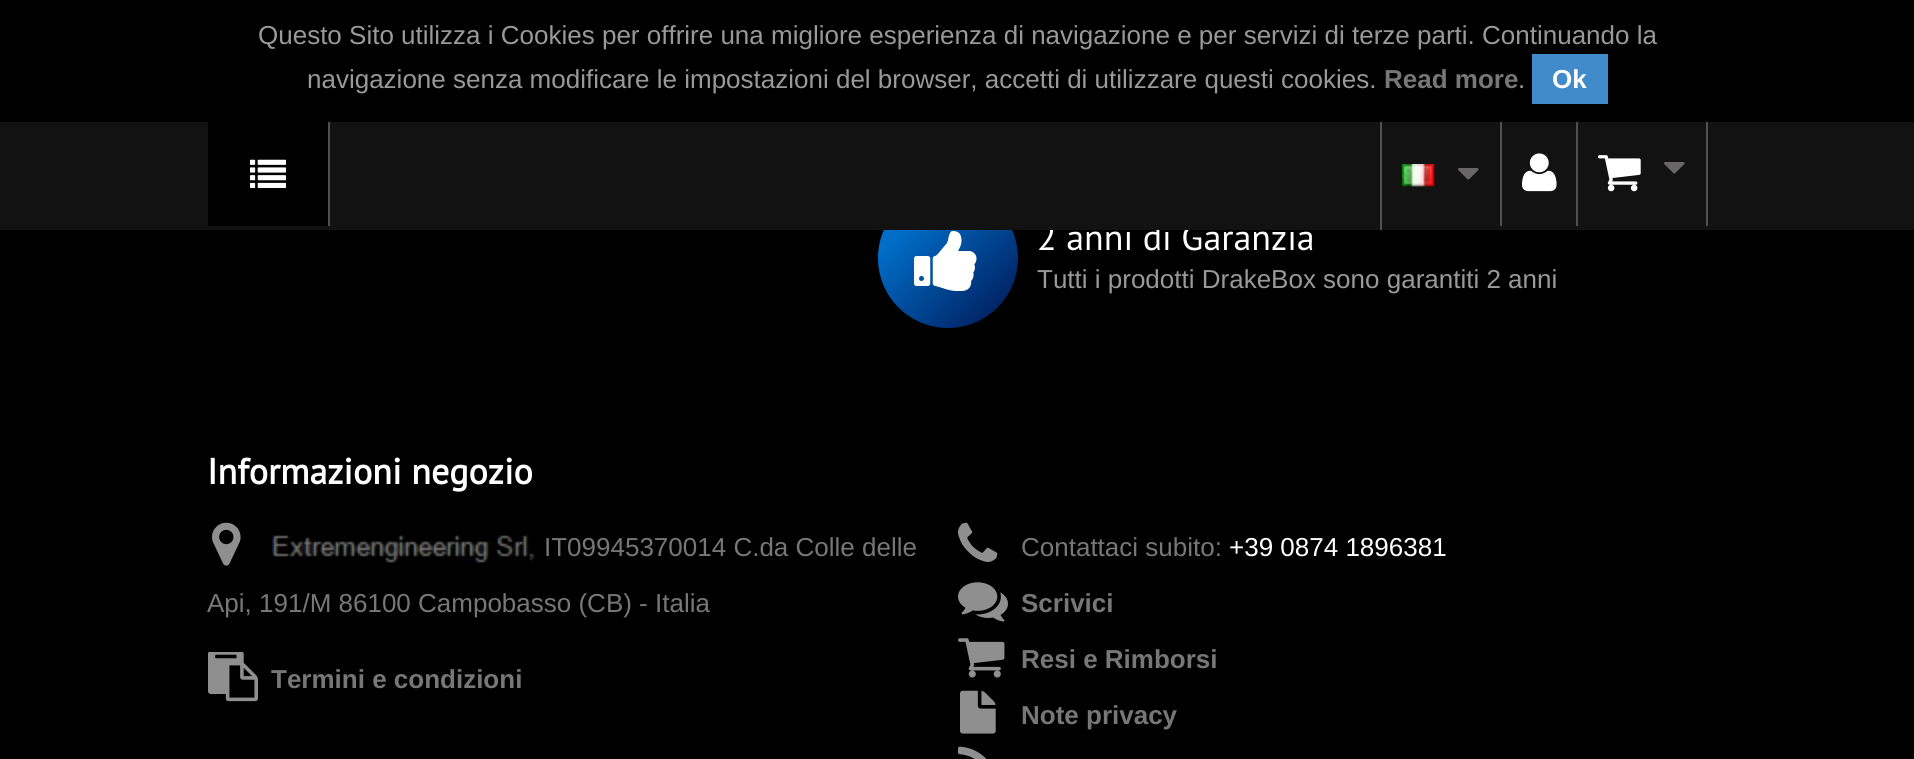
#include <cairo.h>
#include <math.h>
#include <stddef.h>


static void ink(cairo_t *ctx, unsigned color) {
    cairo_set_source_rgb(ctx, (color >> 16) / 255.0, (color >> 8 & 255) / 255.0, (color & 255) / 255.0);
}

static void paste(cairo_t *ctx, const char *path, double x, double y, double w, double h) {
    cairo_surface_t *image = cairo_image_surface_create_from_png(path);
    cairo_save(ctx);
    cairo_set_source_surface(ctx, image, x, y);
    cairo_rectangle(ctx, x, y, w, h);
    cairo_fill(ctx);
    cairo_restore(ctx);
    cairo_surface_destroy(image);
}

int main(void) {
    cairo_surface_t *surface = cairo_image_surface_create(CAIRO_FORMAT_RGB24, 1914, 759);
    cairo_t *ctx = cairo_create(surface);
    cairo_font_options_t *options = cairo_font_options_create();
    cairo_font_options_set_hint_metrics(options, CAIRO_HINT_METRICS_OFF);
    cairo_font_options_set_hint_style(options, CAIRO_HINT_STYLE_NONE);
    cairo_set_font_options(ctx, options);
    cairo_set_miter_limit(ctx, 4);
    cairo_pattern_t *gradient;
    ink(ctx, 0x000000);
    cairo_paint(ctx);
    gradient = cairo_pattern_create_linear(878, 188, 1018, 328);
    cairo_pattern_add_color_stop_rgba(gradient, 0.23, 0, 0.431, 0.784, 1);
    cairo_pattern_add_color_stop_rgba(gradient, 1, 0, 0.078, 0.314, 1);
    cairo_set_source(ctx, gradient);
    cairo_pattern_destroy(gradient);
    cairo_arc(ctx, 948, 258, 70, 0, 2 * M_PI);
    cairo_fill(ctx);
    cairo_select_font_face(ctx, "PT Sans", CAIRO_FONT_SLANT_NORMAL, CAIRO_FONT_WEIGHT_NORMAL);
    cairo_set_font_size(ctx, 36);
    ink(ctx, 0xFFFFFF);
    cairo_move_to(ctx, 1037, 250);
    cairo_show_text(ctx, "2 anni di Garanzia");
    ink(ctx, 0x121212);
    cairo_rectangle(ctx, 0, 122, 1914, 108);
    cairo_fill(ctx);
    cairo_select_font_face(ctx, "Liberation Sans", CAIRO_FONT_SLANT_NORMAL, CAIRO_FONT_WEIGHT_NORMAL);
    cairo_set_font_size(ctx, 26);
    ink(ctx, 0x999999);
    cairo_move_to(ctx, 258, 44);
    cairo_show_text(ctx, "Questo Sito utilizza i Cookies per offrire una migliore esperienza di navigazione e per servizi di terze parti. Continuando la");
    cairo_move_to(ctx, 307, 88);
    cairo_show_text(ctx, "navigazione senza modificare le impostazioni del browser, accetti di utilizzare questi cookies.");
    cairo_select_font_face(ctx, "Liberation Sans", CAIRO_FONT_SLANT_NORMAL, CAIRO_FONT_WEIGHT_BOLD);
    ink(ctx, 0x777777);
    cairo_move_to(ctx, 1384, 88);
    cairo_show_text(ctx, "Read more");
    cairo_select_font_face(ctx, "Liberation Sans", CAIRO_FONT_SLANT_NORMAL, CAIRO_FONT_WEIGHT_NORMAL);
    ink(ctx, 0x999999);
    cairo_move_to(ctx, 1518, 88);
    cairo_show_text(ctx, ".");
    ink(ctx, 0x428BCA);
    cairo_rectangle(ctx, 1532, 54, 76, 50);
    cairo_fill(ctx);
    cairo_select_font_face(ctx, "Liberation Sans", CAIRO_FONT_SLANT_NORMAL, CAIRO_FONT_WEIGHT_BOLD);
    ink(ctx, 0xFFFFFF);
    cairo_move_to(ctx, 1552, 88);
    cairo_show_text(ctx, "Ok");
    ink(ctx, 0x000000);
    cairo_rectangle(ctx, 208, 122, 120, 104);
    cairo_fill(ctx);
    ink(ctx, 0x515151);
    cairo_rectangle(ctx, 328, 122, 2, 104);
    cairo_fill(ctx);
    paste(ctx, "media/1.png", 250, 159, 36, 29);
    cairo_rectangle(ctx, 1380, 122, 2, 108);
    cairo_fill(ctx);
    paste(ctx, "media/2.png", 1402, 164, 33, 23);
    paste(ctx, "media/3.png", 1458, 168, 21, 12);
    cairo_rectangle(ctx, 1576, 122, 2, 104);
    cairo_fill(ctx);
    cairo_rectangle(ctx, 1500, 122, 2, 104);
    cairo_fill(ctx);
    paste(ctx, "media/4.png", 1522, 153, 35, 39);
    cairo_rectangle(ctx, 1706, 122, 2, 104);
    cairo_fill(ctx);
    paste(ctx, "media/5.png", 1598, 155, 43, 37);
    paste(ctx, "media/3.png", 1664, 162, 21, 12);
    paste(ctx, "media/6.png", 914, 231, 63, 60);
    cairo_select_font_face(ctx, "Liberation Sans", CAIRO_FONT_SLANT_NORMAL, CAIRO_FONT_WEIGHT_NORMAL);
    ink(ctx, 0x999999);
    cairo_move_to(ctx, 1037, 288);
    cairo_show_text(ctx, "Tutti i prodotti DrakeBox sono garantiti 2 anni");
    cairo_select_font_face(ctx, "PT Sans", CAIRO_FONT_SLANT_NORMAL, CAIRO_FONT_WEIGHT_BOLD);
    cairo_set_font_size(ctx, 36);
    ink(ctx, 0xFFFFFF);
    cairo_move_to(ctx, 207, 484);
    cairo_show_text(ctx, "Informazioni negozio");
    paste(ctx, "media/7.png", 212, 522, 29, 44);
    paste(ctx, "media/8.png", 272, 535, 263, 28);
    cairo_select_font_face(ctx, "Liberation Sans", CAIRO_FONT_SLANT_NORMAL, CAIRO_FONT_WEIGHT_NORMAL);
    cairo_set_font_size(ctx, 26);
    ink(ctx, 0x777777);
    cairo_move_to(ctx, 544, 556);
    cairo_show_text(ctx, "IT09945370014 C.da Colle delle");
    cairo_move_to(ctx, 207, 612);
    cairo_show_text(ctx, "Api, 191/M 86100 Campobasso (CB) - Italia");
    paste(ctx, "media/9.png", 958, 522, 40, 40);
    cairo_move_to(ctx, 1021, 556);
    cairo_show_text(ctx, "Contattaci subito:");
    ink(ctx, 0xFFFFFF);
    cairo_move_to(ctx, 1229, 556);
    cairo_show_text(ctx, "+39 0874 1896381");
    paste(ctx, "media/10.png", 958, 582, 50, 40);
    cairo_select_font_face(ctx, "Liberation Sans", CAIRO_FONT_SLANT_NORMAL, CAIRO_FONT_WEIGHT_BOLD);
    ink(ctx, 0x777777);
    cairo_move_to(ctx, 1021, 612);
    cairo_show_text(ctx, "Scrivici");
    paste(ctx, "media/11.png", 958, 638, 47, 40);
    cairo_move_to(ctx, 1021, 668);
    cairo_show_text(ctx, "Resi e Rimborsi");
    paste(ctx, "media/12.png", 208, 652, 50, 50);
    cairo_move_to(ctx, 271, 688);
    cairo_show_text(ctx, "Termini e condizioni");
    paste(ctx, "media/13.png", 960, 690, 36, 44);
    cairo_move_to(ctx, 1021, 724);
    cairo_show_text(ctx, "Note privacy");
    paste(ctx, "media/14.png", 958, 746, 29, 13);
    cairo_surface_write_to_png(surface, "image.png");
    cairo_font_options_destroy(options);
    cairo_destroy(ctx);
    cairo_surface_destroy(surface);
    return 0;
}
